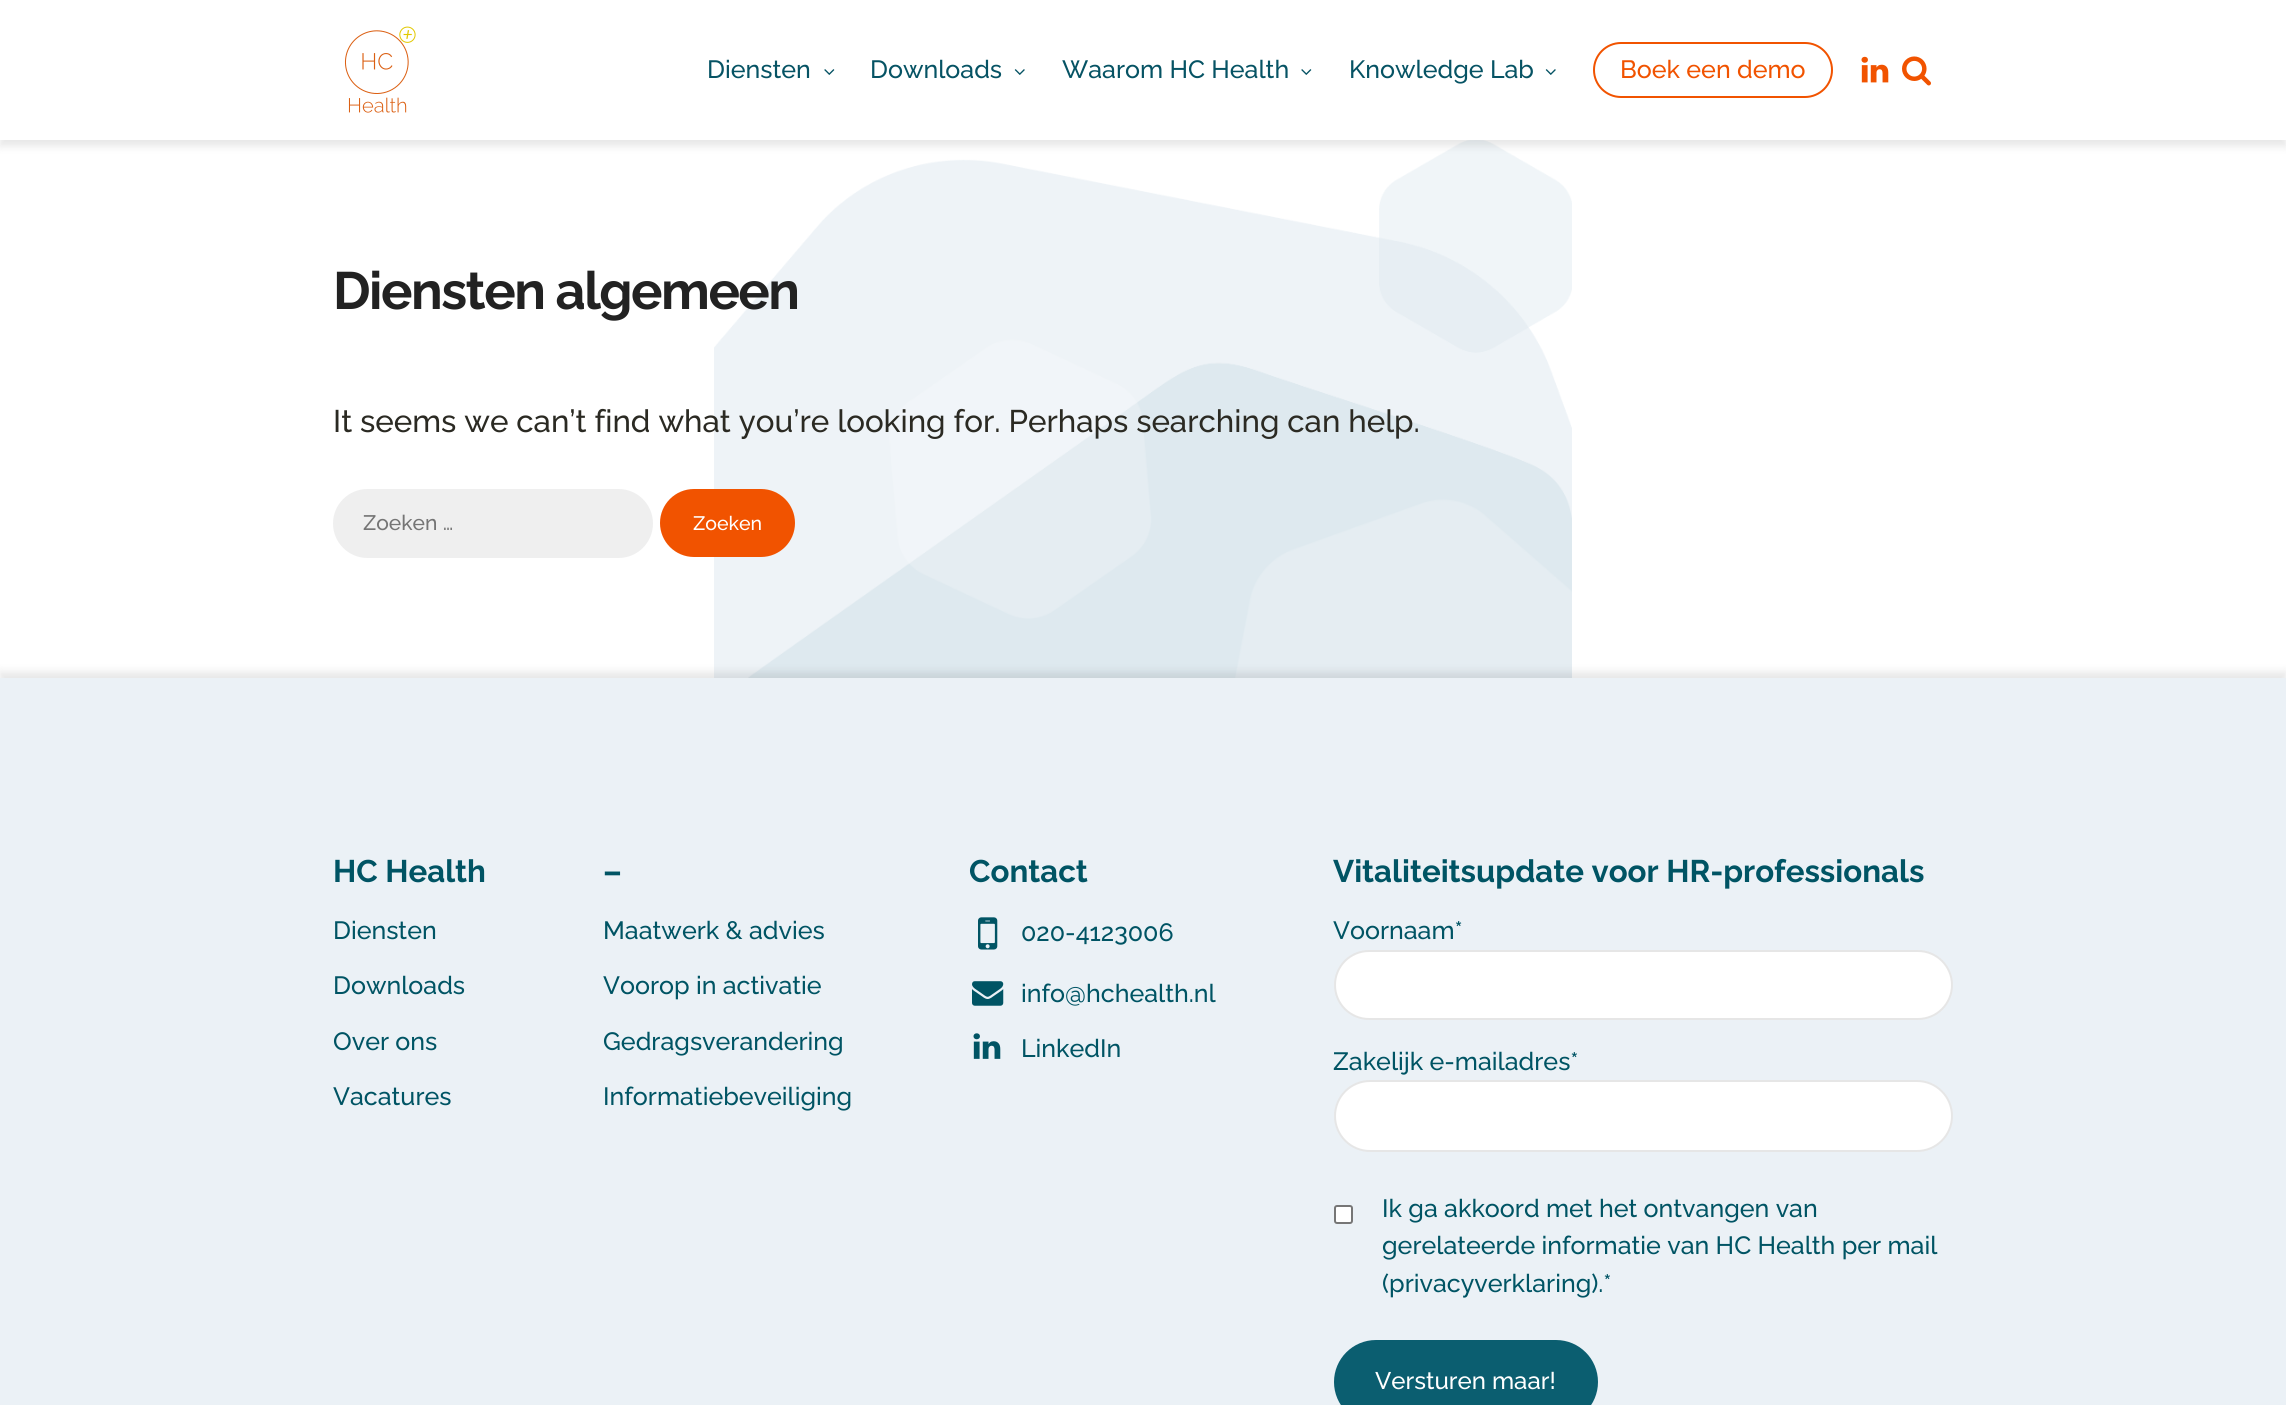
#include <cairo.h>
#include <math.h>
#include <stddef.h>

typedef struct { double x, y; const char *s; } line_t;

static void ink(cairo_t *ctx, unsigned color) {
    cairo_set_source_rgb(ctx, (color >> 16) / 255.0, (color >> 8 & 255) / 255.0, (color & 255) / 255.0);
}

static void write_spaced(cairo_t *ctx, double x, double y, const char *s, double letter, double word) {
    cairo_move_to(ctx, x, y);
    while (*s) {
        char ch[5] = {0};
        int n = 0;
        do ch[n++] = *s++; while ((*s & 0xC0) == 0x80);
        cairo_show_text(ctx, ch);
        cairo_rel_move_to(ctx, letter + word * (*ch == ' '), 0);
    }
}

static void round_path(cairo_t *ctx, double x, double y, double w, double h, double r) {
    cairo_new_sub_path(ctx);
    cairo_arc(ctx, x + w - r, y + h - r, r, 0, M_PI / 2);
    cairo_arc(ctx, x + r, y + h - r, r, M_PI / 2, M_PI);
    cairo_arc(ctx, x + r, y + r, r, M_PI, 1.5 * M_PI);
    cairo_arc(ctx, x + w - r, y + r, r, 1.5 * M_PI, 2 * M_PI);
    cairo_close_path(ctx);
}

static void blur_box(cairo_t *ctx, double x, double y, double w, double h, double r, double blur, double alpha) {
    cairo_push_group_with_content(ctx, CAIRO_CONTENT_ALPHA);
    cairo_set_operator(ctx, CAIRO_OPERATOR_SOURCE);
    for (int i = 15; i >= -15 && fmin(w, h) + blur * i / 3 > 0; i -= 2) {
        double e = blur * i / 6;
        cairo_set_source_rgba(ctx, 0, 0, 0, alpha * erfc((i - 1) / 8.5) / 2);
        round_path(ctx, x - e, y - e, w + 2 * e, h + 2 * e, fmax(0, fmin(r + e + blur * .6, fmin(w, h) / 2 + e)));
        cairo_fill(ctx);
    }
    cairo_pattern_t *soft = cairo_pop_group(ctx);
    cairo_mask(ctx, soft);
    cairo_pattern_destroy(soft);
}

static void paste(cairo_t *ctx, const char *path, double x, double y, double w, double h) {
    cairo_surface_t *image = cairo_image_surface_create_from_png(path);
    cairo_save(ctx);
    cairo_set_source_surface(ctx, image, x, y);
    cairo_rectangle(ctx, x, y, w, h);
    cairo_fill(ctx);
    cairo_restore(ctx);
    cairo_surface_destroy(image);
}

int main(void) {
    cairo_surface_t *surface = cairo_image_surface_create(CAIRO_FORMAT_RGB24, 2286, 1405);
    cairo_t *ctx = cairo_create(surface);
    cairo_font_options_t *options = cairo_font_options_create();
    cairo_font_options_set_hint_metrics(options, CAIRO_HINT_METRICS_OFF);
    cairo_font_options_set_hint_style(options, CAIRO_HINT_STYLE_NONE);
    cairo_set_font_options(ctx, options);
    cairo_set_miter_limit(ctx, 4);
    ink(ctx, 0xFFFFFF);
    cairo_paint(ctx);
    paste(ctx, "media/6.png", 714, 140, 858, 538);
    ink(ctx, 0x000000);
    blur_box(ctx, 0, 6, 2286, 140, 0, 4.5, 0.1);
    ink(ctx, 0xFFFFFF);
    cairo_rectangle(ctx, 0, 0, 2286, 140);
    cairo_fill(ctx);
    paste(ctx, "media/1.png", 344, 26, 72, 87);
    cairo_select_font_face(ctx, "Raleway Medium", CAIRO_FONT_SLANT_NORMAL, CAIRO_FONT_WEIGHT_NORMAL);
    cairo_set_font_size(ctx, 25);
    ink(ctx, 0x065364);
    cairo_move_to(ctx, 707, 78);
    cairo_show_text(ctx, "Diensten");
    paste(ctx, "media/2.png", 824, 69, 11, 6);
    cairo_move_to(ctx, 870, 78);
    cairo_show_text(ctx, "Downloads");
    paste(ctx, "media/3.png", 1014, 69, 11, 6);
    cairo_move_to(ctx, 1062, 78);
    cairo_show_text(ctx, "Waarom HC Health");
    paste(ctx, "media/2.png", 1301, 69, 11, 6);
    cairo_move_to(ctx, 1349, 78);
    cairo_show_text(ctx, "Knowledge Lab");
    paste(ctx, "media/3.png", 1545, 69, 11, 6);
    round_path(ctx, 1594, 43, 238, 54, 27);
    ink(ctx, 0xF15300);
    cairo_stroke(ctx);
    cairo_move_to(ctx, 1620, 78);
    cairo_show_text(ctx, "Boek een demo");
    paste(ctx, "media/4.png", 1861, 56, 28, 27);
    paste(ctx, "media/5.png", 1902, 56, 29, 30);
    cairo_select_font_face(ctx, "Raleway", CAIRO_FONT_SLANT_NORMAL, CAIRO_FONT_WEIGHT_BOLD);
    cairo_set_font_size(ctx, 52.5);
    ink(ctx, 0x222222);
    write_spaced(ctx, 333, 309, "Diensten algemeen", -1.5, 0);
    cairo_select_font_face(ctx, "Raleway Medium", CAIRO_FONT_SLANT_NORMAL, CAIRO_FONT_WEIGHT_NORMAL);
    cairo_set_font_size(ctx, 31.25);
    ink(ctx, 0x2B2A23);
    cairo_move_to(ctx, 333, 432);
    cairo_show_text(ctx, "It seems we can’t find what you’re looking for. Perhaps searching can help.");
    ink(ctx, 0xEFEFEF);
    round_path(ctx, 333, 489, 320, 69, 34.5);
    cairo_fill(ctx);
    cairo_set_font_size(ctx, 21);
    ink(ctx, 0x757575);
    cairo_move_to(ctx, 363, 530);
    cairo_show_text(ctx, "Zoeken …");
    ink(ctx, 0xF15300);
    round_path(ctx, 660, 489, 135, 68, 34);
    cairo_fill(ctx);
    cairo_set_font_size(ctx, 19.5);
    ink(ctx, 0xFFFFFF);
    cairo_move_to(ctx, 693, 530);
    cairo_show_text(ctx, "Zoeken");
    ink(ctx, 0x000000);
    blur_box(ctx, 0, 672, 2286, 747, 0, 4.5, 0.1);
    ink(ctx, 0xEBF1F6);
    cairo_rectangle(ctx, 0, 678, 2286, 727);
    cairo_fill(ctx);
    cairo_select_font_face(ctx, "Raleway", CAIRO_FONT_SLANT_NORMAL, CAIRO_FONT_WEIGHT_BOLD);
    cairo_set_font_size(ctx, 31.25);
    ink(ctx, 0x005464);
    cairo_move_to(ctx, 333, 882);
    cairo_show_text(ctx, "HC Health");
    cairo_select_font_face(ctx, "Raleway Medium", CAIRO_FONT_SLANT_NORMAL, CAIRO_FONT_WEIGHT_NORMAL);
    cairo_set_font_size(ctx, 25);
    {
        static const line_t items[] = {
            {333, 939, "Diensten"},
            {333, 994, "Downloads"},
            {333, 1050, "Over ons"},
            {333, 1105, "Vacatures"},
        };
        for (size_t i = 0; i < sizeof items / sizeof *items; i++) {
            cairo_move_to(ctx, items[i].x, items[i].y);
            cairo_show_text(ctx, items[i].s);
        }
    }
    cairo_select_font_face(ctx, "Raleway", CAIRO_FONT_SLANT_NORMAL, CAIRO_FONT_WEIGHT_BOLD);
    cairo_set_font_size(ctx, 31.25);
    cairo_move_to(ctx, 603, 882);
    cairo_show_text(ctx, "–");
    cairo_select_font_face(ctx, "Raleway Medium", CAIRO_FONT_SLANT_NORMAL, CAIRO_FONT_WEIGHT_NORMAL);
    cairo_set_font_size(ctx, 25);
    {
        static const line_t items[] = {
            {603, 939, "Maatwerk & advies"},
            {603, 994, "Voorop in activatie"},
            {603, 1050, "Gedragsverandering"},
            {603, 1105, "Informatiebeveiliging"},
        };
        for (size_t i = 0; i < sizeof items / sizeof *items; i++) {
            cairo_move_to(ctx, items[i].x, items[i].y);
            cairo_show_text(ctx, items[i].s);
        }
    }
    cairo_select_font_face(ctx, "Raleway", CAIRO_FONT_SLANT_NORMAL, CAIRO_FONT_WEIGHT_BOLD);
    cairo_set_font_size(ctx, 31.25);
    cairo_move_to(ctx, 969, 882);
    cairo_show_text(ctx, "Contact");
    paste(ctx, "media/7.png", 978, 917, 20, 33);
    cairo_select_font_face(ctx, "Raleway Medium", CAIRO_FONT_SLANT_NORMAL, CAIRO_FONT_WEIGHT_NORMAL);
    cairo_set_font_size(ctx, 25);
    cairo_move_to(ctx, 1021, 941);
    cairo_show_text(ctx, "020-4123006");
    paste(ctx, "media/8.png", 972, 981, 32, 25);
    cairo_move_to(ctx, 1021, 1002);
    cairo_show_text(ctx, "info@hchealth.nl");
    paste(ctx, "media/9.png", 973, 1033, 28, 26);
    cairo_move_to(ctx, 1021, 1057);
    cairo_show_text(ctx, "LinkedIn");
    cairo_select_font_face(ctx, "Raleway", CAIRO_FONT_SLANT_NORMAL, CAIRO_FONT_WEIGHT_BOLD);
    cairo_set_font_size(ctx, 31.25);
    cairo_move_to(ctx, 1333, 882);
    cairo_show_text(ctx, "Vitaliteitsupdate voor HR-professionals");
    cairo_select_font_face(ctx, "Raleway Medium", CAIRO_FONT_SLANT_NORMAL, CAIRO_FONT_WEIGHT_NORMAL);
    cairo_set_font_size(ctx, 25);
    cairo_move_to(ctx, 1333, 939);
    cairo_show_text(ctx, "Voornaam*");
    ink(ctx, 0xFFFFFF);
    round_path(ctx, 1334, 950, 619, 70, 35);
    cairo_fill(ctx);
    round_path(ctx, 1335, 951, 617, 68, 34);
    cairo_set_source_rgba(ctx, 0, 0, 0, 0.1);
    cairo_stroke(ctx);
    ink(ctx, 0x005464);
    cairo_move_to(ctx, 1333, 1070);
    cairo_show_text(ctx, "Zakelijk e-mailadres*");
    ink(ctx, 0xFFFFFF);
    round_path(ctx, 1334, 1080, 619, 72, 36);
    cairo_fill(ctx);
    round_path(ctx, 1335, 1081, 617, 70, 35);
    cairo_set_source_rgba(ctx, 0, 0, 0, 0.1);
    cairo_stroke(ctx);
    ink(ctx, 0xFFFFFF);
    round_path(ctx, 1335, 1206, 17, 17, 2);
    cairo_fill_preserve(ctx);
    ink(ctx, 0x767676);
    cairo_stroke(ctx);
    ink(ctx, 0x005464);
    {
        static const line_t items[] = {
            {1382, 1217, "Ik ga akkoord met het ontvangen van"},
            {1382, 1254, "gerelateerde informatie van HC Health per mail"},
            {1382, 1292, "(privacyverklaring).*"},
        };
        for (size_t i = 0; i < sizeof items / sizeof *items; i++) {
            cairo_move_to(ctx, items[i].x, items[i].y);
            cairo_show_text(ctx, items[i].s);
        }
    }
    ink(ctx, 0x0B5E70);
    round_path(ctx, 1334, 1340, 264, 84, 42);
    cairo_fill(ctx);
    cairo_set_font_size(ctx, 24);
    ink(ctx, 0xFFFFFF);
    cairo_move_to(ctx, 1375, 1389);
    cairo_show_text(ctx, "Versturen maar!");
    cairo_surface_write_to_png(surface, "image.png");
    cairo_font_options_destroy(options);
    cairo_destroy(ctx);
    cairo_surface_destroy(surface);
    return 0;
}
